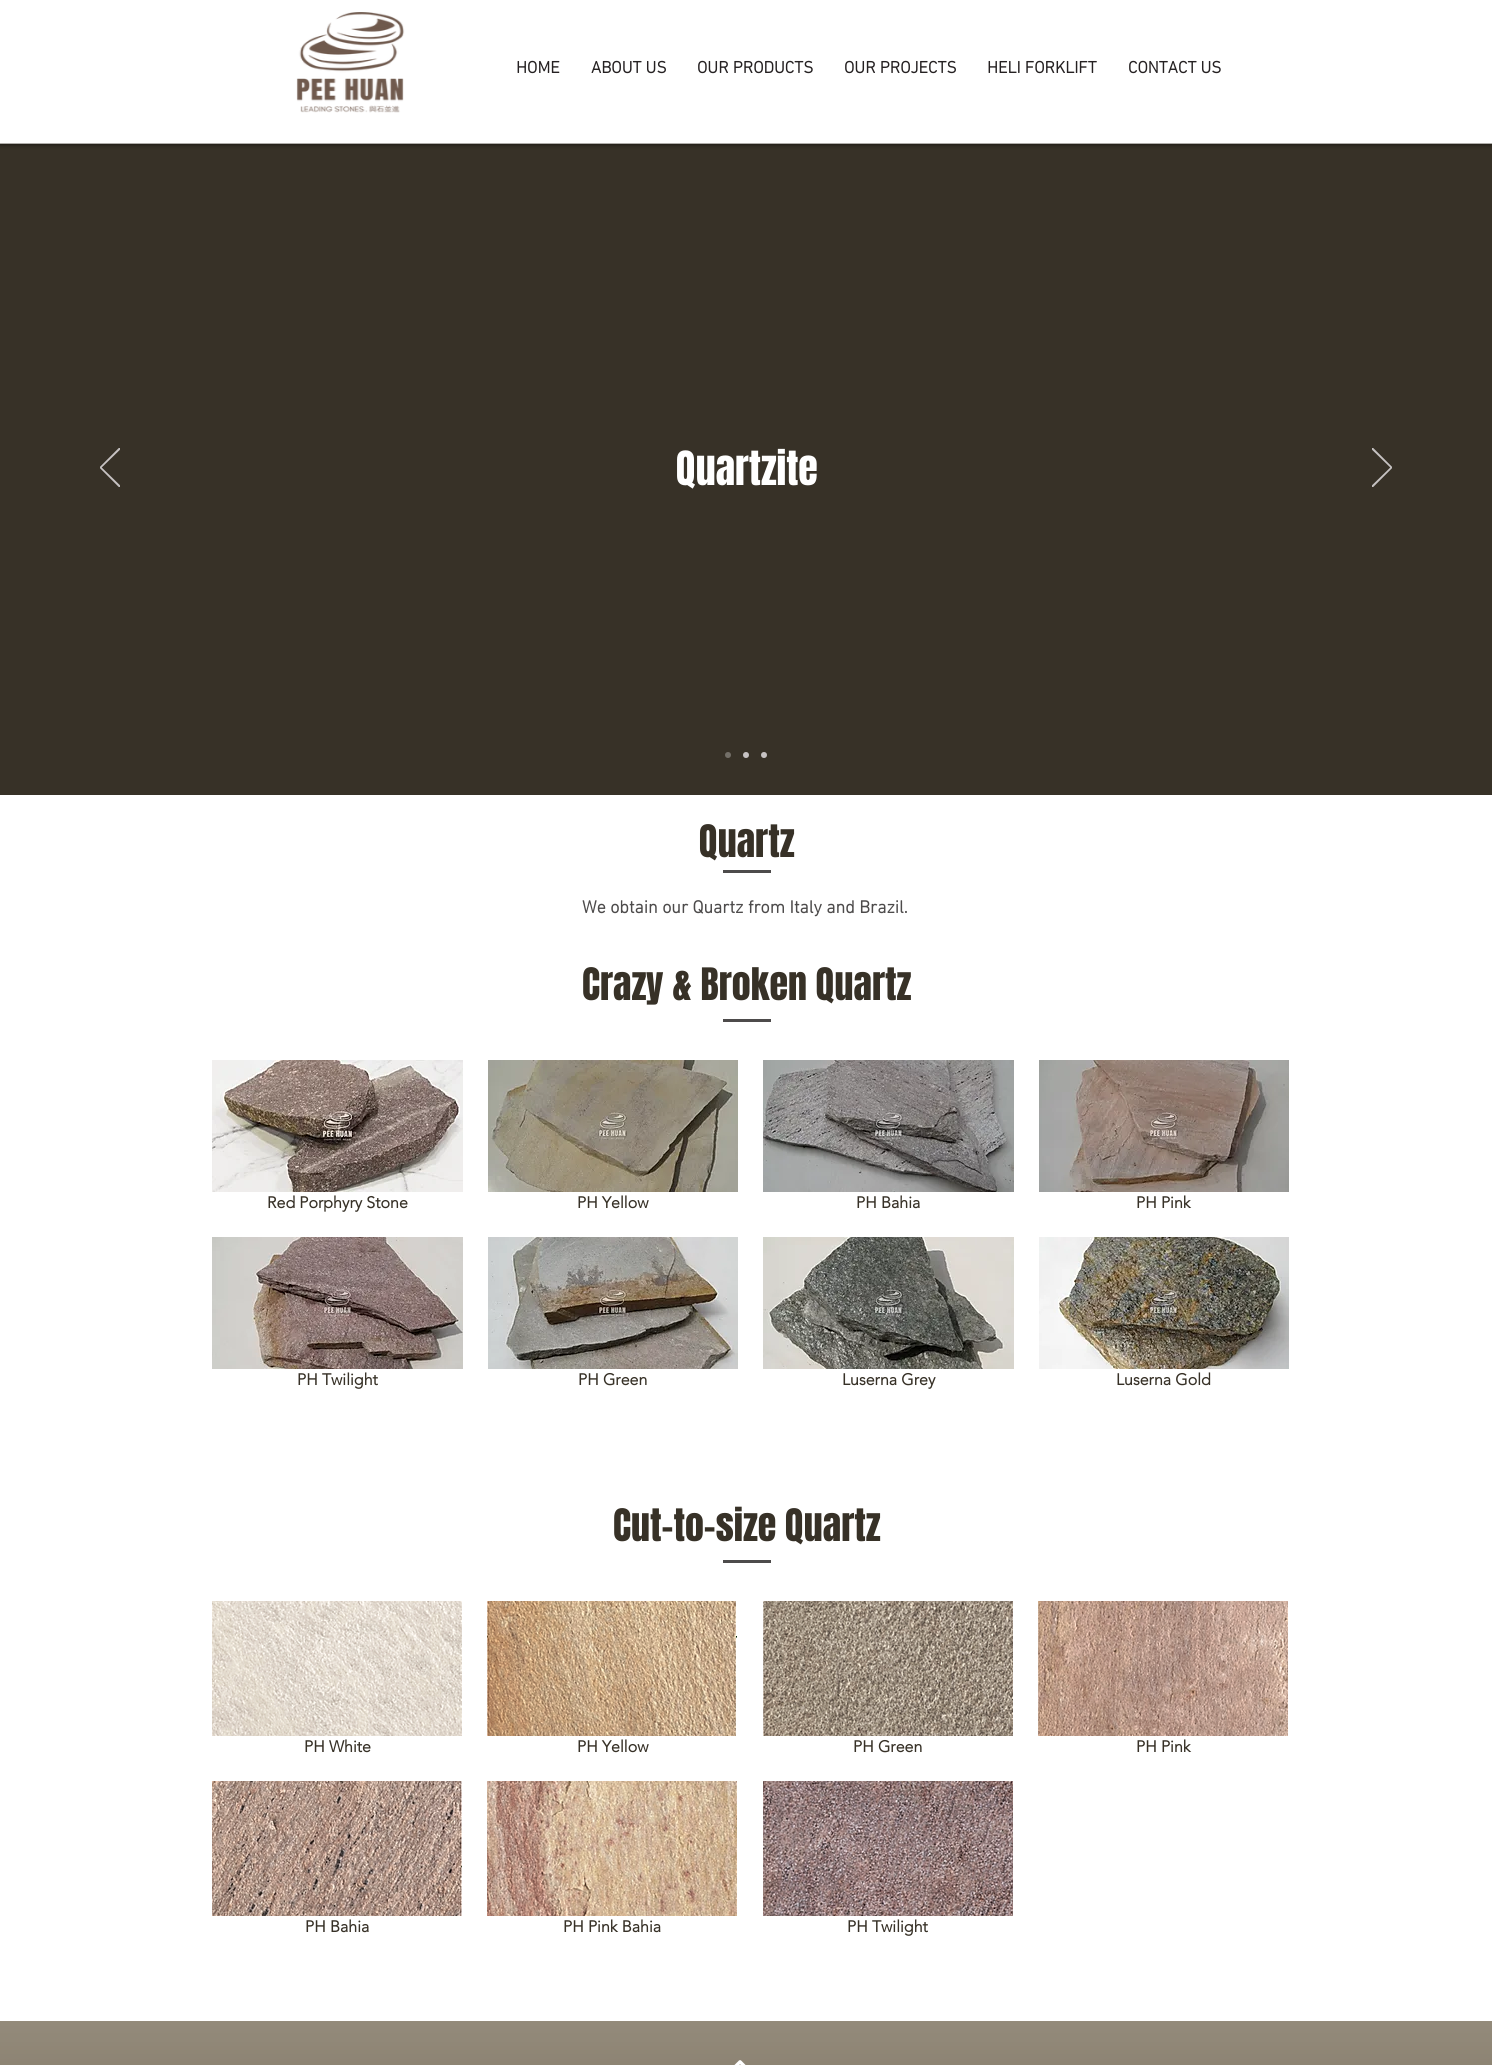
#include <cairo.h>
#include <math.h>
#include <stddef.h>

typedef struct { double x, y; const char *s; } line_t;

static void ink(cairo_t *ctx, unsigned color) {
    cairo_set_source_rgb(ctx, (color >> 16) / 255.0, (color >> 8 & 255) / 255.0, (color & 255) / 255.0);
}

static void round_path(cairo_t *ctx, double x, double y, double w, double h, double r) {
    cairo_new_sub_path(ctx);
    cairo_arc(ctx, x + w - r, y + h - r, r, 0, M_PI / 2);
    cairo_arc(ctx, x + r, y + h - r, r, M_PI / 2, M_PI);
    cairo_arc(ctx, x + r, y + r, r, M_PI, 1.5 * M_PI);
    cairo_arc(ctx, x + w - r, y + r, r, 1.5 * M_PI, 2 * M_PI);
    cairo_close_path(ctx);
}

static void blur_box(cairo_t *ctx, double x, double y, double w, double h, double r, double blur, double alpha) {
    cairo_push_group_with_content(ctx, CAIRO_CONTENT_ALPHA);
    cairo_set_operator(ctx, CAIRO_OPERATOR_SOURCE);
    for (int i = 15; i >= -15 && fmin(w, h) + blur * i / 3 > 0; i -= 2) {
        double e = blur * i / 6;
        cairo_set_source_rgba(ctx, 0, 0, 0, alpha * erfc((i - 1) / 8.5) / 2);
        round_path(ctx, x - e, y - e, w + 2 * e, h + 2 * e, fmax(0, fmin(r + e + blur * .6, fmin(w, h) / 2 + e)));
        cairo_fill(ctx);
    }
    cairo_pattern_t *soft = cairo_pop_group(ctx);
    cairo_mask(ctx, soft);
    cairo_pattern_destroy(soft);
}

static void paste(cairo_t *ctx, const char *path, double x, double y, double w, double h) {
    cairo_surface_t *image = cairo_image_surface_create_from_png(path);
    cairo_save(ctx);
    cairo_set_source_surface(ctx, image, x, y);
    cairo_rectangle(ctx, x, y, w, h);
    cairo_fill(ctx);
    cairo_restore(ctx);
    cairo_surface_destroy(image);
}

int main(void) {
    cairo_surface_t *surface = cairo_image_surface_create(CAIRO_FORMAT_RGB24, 1492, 2065);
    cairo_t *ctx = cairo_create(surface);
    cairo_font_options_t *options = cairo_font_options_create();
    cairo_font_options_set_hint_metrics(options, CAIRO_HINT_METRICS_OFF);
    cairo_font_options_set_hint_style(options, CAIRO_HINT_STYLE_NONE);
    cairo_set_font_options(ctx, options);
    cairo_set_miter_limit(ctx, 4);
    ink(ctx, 0xFFFFFF);
    cairo_paint(ctx);
    ink(ctx, 0x373127);
    cairo_rectangle(ctx, 0, 144, 1492, 651);
    cairo_fill(ctx);
    ink(ctx, 0xAFADA9);
    cairo_rectangle(ctx, 0, 143, 1492, 1);
    cairo_fill(ctx);
    cairo_save(ctx);
    cairo_rectangle(ctx, 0, 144, 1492, 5);
    cairo_clip(ctx);
    ink(ctx, 0x000000);
    blur_box(ctx, 0, 0, 1492, 144, 0, 2.5, 0.7);
    cairo_restore(ctx);
    paste(ctx, "media/1.png", 296, 12, 109, 101);
    cairo_select_font_face(ctx, "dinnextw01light", CAIRO_FONT_SLANT_NORMAL, CAIRO_FONT_WEIGHT_BOLD);
    cairo_set_font_size(ctx, 17);
    ink(ctx, 0x252122);
    {
        static const line_t items[] = {
            {516, 73, "HOME"},
            {591, 73, "ABOUT US"},
            {697, 73, "OUR PRODUCTS"},
            {844, 73, "OUR PROJECTS"},
            {987, 73, "HELI FORKLIFT"},
            {1128, 73, "CONTACT US"},
        };
        for (size_t i = 0; i < sizeof items / sizeof *items; i++) {
            cairo_move_to(ctx, items[i].x, items[i].y);
            cairo_show_text(ctx, items[i].s);
        }
    }
    cairo_save(ctx);
    cairo_rectangle(ctx, 100, 448, 20, 39);
    cairo_clip(ctx);
    cairo_new_path(ctx);
    cairo_move_to(ctx, 119.5, 487);
    cairo_line_to(ctx, 100, 467.5);
    cairo_line_to(ctx, 119.5, 448);
    cairo_line_to(ctx, 120, 449);
    cairo_line_to(ctx, 101, 467.5);
    cairo_line_to(ctx, 120, 486);
    cairo_close_path(ctx);
    ink(ctx, 0xC7C3C3);
    cairo_set_line_width(ctx, 1);
    cairo_stroke(ctx);
    cairo_restore(ctx);
    cairo_select_font_face(ctx, "Anton", CAIRO_FONT_SLANT_NORMAL, CAIRO_FONT_WEIGHT_NORMAL);
    cairo_set_font_size(ctx, 40);
    ink(ctx, 0xFFFFFF);
    cairo_move_to(ctx, 676, 485);
    cairo_show_text(ctx, "Quartzite");
    cairo_save(ctx);
    cairo_rectangle(ctx, 1372, 448, 20, 39);
    cairo_clip(ctx);
    cairo_new_path(ctx);
    cairo_move_to(ctx, 1372.5, 487);
    cairo_line_to(ctx, 1392, 467.5);
    cairo_line_to(ctx, 1372.5, 448);
    cairo_line_to(ctx, 1372, 449);
    cairo_line_to(ctx, 1391, 467.5);
    cairo_line_to(ctx, 1372, 486);
    cairo_close_path(ctx);
    ink(ctx, 0xC7C3C3);
    cairo_set_line_width(ctx, 1);
    cairo_stroke(ctx);
    cairo_restore(ctx);
    ink(ctx, 0x736F68);
    cairo_arc(ctx, 728, 755, 3, 0, 2 * M_PI);
    cairo_fill(ctx);
    ink(ctx, 0xC7C3C3);
    cairo_arc(ctx, 746, 755, 3, 0, 2 * M_PI);
    cairo_fill(ctx);
    cairo_arc(ctx, 764, 755, 3, 0, 2 * M_PI);
    cairo_fill(ctx);
    cairo_set_font_size(ctx, 38);
    ink(ctx, 0x373127);
    cairo_move_to(ctx, 699, 857);
    cairo_show_text(ctx, "Quartz");
    ink(ctx, 0x4D4B4B);
    cairo_rectangle(ctx, 723, 870, 48, 3);
    cairo_fill(ctx);
    cairo_select_font_face(ctx, "dinnextw01light", CAIRO_FONT_SLANT_NORMAL, CAIRO_FONT_WEIGHT_BOLD);
    cairo_set_font_size(ctx, 18);
    cairo_move_to(ctx, 582, 913);
    cairo_show_text(ctx, "We obtain our Quartz from Italy and Brazil.");
    cairo_select_font_face(ctx, "Anton", CAIRO_FONT_SLANT_NORMAL, CAIRO_FONT_WEIGHT_NORMAL);
    cairo_set_font_size(ctx, 38);
    ink(ctx, 0x373127);
    cairo_move_to(ctx, 582, 1000);
    cairo_show_text(ctx, "Crazy & Broken Quartz");
    ink(ctx, 0x4D4B4B);
    cairo_rectangle(ctx, 723, 1019, 48, 3);
    cairo_fill(ctx);
    paste(ctx, "media/2.png", 212, 1060, 251, 132);
    cairo_select_font_face(ctx, "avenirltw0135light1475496", CAIRO_FONT_SLANT_NORMAL, CAIRO_FONT_WEIGHT_BOLD);
    cairo_set_font_size(ctx, 16);
    ink(ctx, 0x373127);
    cairo_move_to(ctx, 267, 1208);
    cairo_show_text(ctx, "Red Porphyry Stone");
    paste(ctx, "media/3.png", 488, 1060, 250, 132);
    cairo_move_to(ctx, 577, 1208);
    cairo_show_text(ctx, "PH Yellow");
    paste(ctx, "media/4.png", 763, 1060, 251, 132);
    cairo_move_to(ctx, 856, 1208);
    cairo_show_text(ctx, "PH Bahia");
    paste(ctx, "media/5.png", 1039, 1060, 250, 132);
    cairo_move_to(ctx, 1136, 1208);
    cairo_show_text(ctx, "PH Pink");
    paste(ctx, "media/6.png", 212, 1237, 251, 132);
    cairo_move_to(ctx, 297, 1385);
    cairo_show_text(ctx, "PH Twilight");
    paste(ctx, "media/7.png", 488, 1237, 250, 132);
    cairo_move_to(ctx, 578, 1385);
    cairo_show_text(ctx, "PH Green");
    paste(ctx, "media/8.png", 763, 1237, 251, 132);
    cairo_move_to(ctx, 842, 1385);
    cairo_show_text(ctx, "Luserna Grey");
    paste(ctx, "media/9.png", 1039, 1237, 250, 132);
    cairo_move_to(ctx, 1116, 1385);
    cairo_show_text(ctx, "Luserna Gold");
    cairo_select_font_face(ctx, "Anton", CAIRO_FONT_SLANT_NORMAL, CAIRO_FONT_WEIGHT_NORMAL);
    cairo_set_font_size(ctx, 38);
    cairo_move_to(ctx, 613, 1541);
    cairo_show_text(ctx, "Cut-to-size Quartz");
    ink(ctx, 0x4D4B4B);
    cairo_rectangle(ctx, 723, 1560, 48, 3);
    cairo_fill(ctx);
    paste(ctx, "media/10.png", 212, 1601, 250, 135);
    cairo_select_font_face(ctx, "avenirltw0135light1475496", CAIRO_FONT_SLANT_NORMAL, CAIRO_FONT_WEIGHT_BOLD);
    cairo_set_font_size(ctx, 16);
    ink(ctx, 0x373127);
    cairo_move_to(ctx, 304, 1752);
    cairo_show_text(ctx, "PH White");
    paste(ctx, "media/11.png", 487, 1601, 250, 135);
    cairo_move_to(ctx, 577, 1752);
    cairo_show_text(ctx, "PH Yellow");
    paste(ctx, "media/12.png", 763, 1601, 250, 135);
    cairo_move_to(ctx, 853, 1752);
    cairo_show_text(ctx, "PH Green");
    paste(ctx, "media/13.png", 1038, 1601, 250, 135);
    cairo_move_to(ctx, 1136, 1752);
    cairo_show_text(ctx, "PH Pink");
    paste(ctx, "media/14.png", 212, 1781, 250, 135);
    cairo_move_to(ctx, 305, 1932);
    cairo_show_text(ctx, "PH Bahia");
    paste(ctx, "media/15.png", 487, 1781, 250, 135);
    cairo_move_to(ctx, 563, 1932);
    cairo_show_text(ctx, "PH Pink Bahia");
    paste(ctx, "media/16.png", 763, 1781, 250, 135);
    cairo_move_to(ctx, 847, 1932);
    cairo_show_text(ctx, "PH Twilight");
    ink(ctx, 0x6E624D);
    cairo_rectangle(ctx, 0, 2021, 1492, 44);
    cairo_fill(ctx);
    paste(ctx, "media/17.png", 0, 2021, 1492, 44);
    paste(ctx, "media/18.png", 734, 2060, 12, 5);
    cairo_surface_write_to_png(surface, "image.png");
    cairo_font_options_destroy(options);
    cairo_destroy(ctx);
    cairo_surface_destroy(surface);
    return 0;
}
